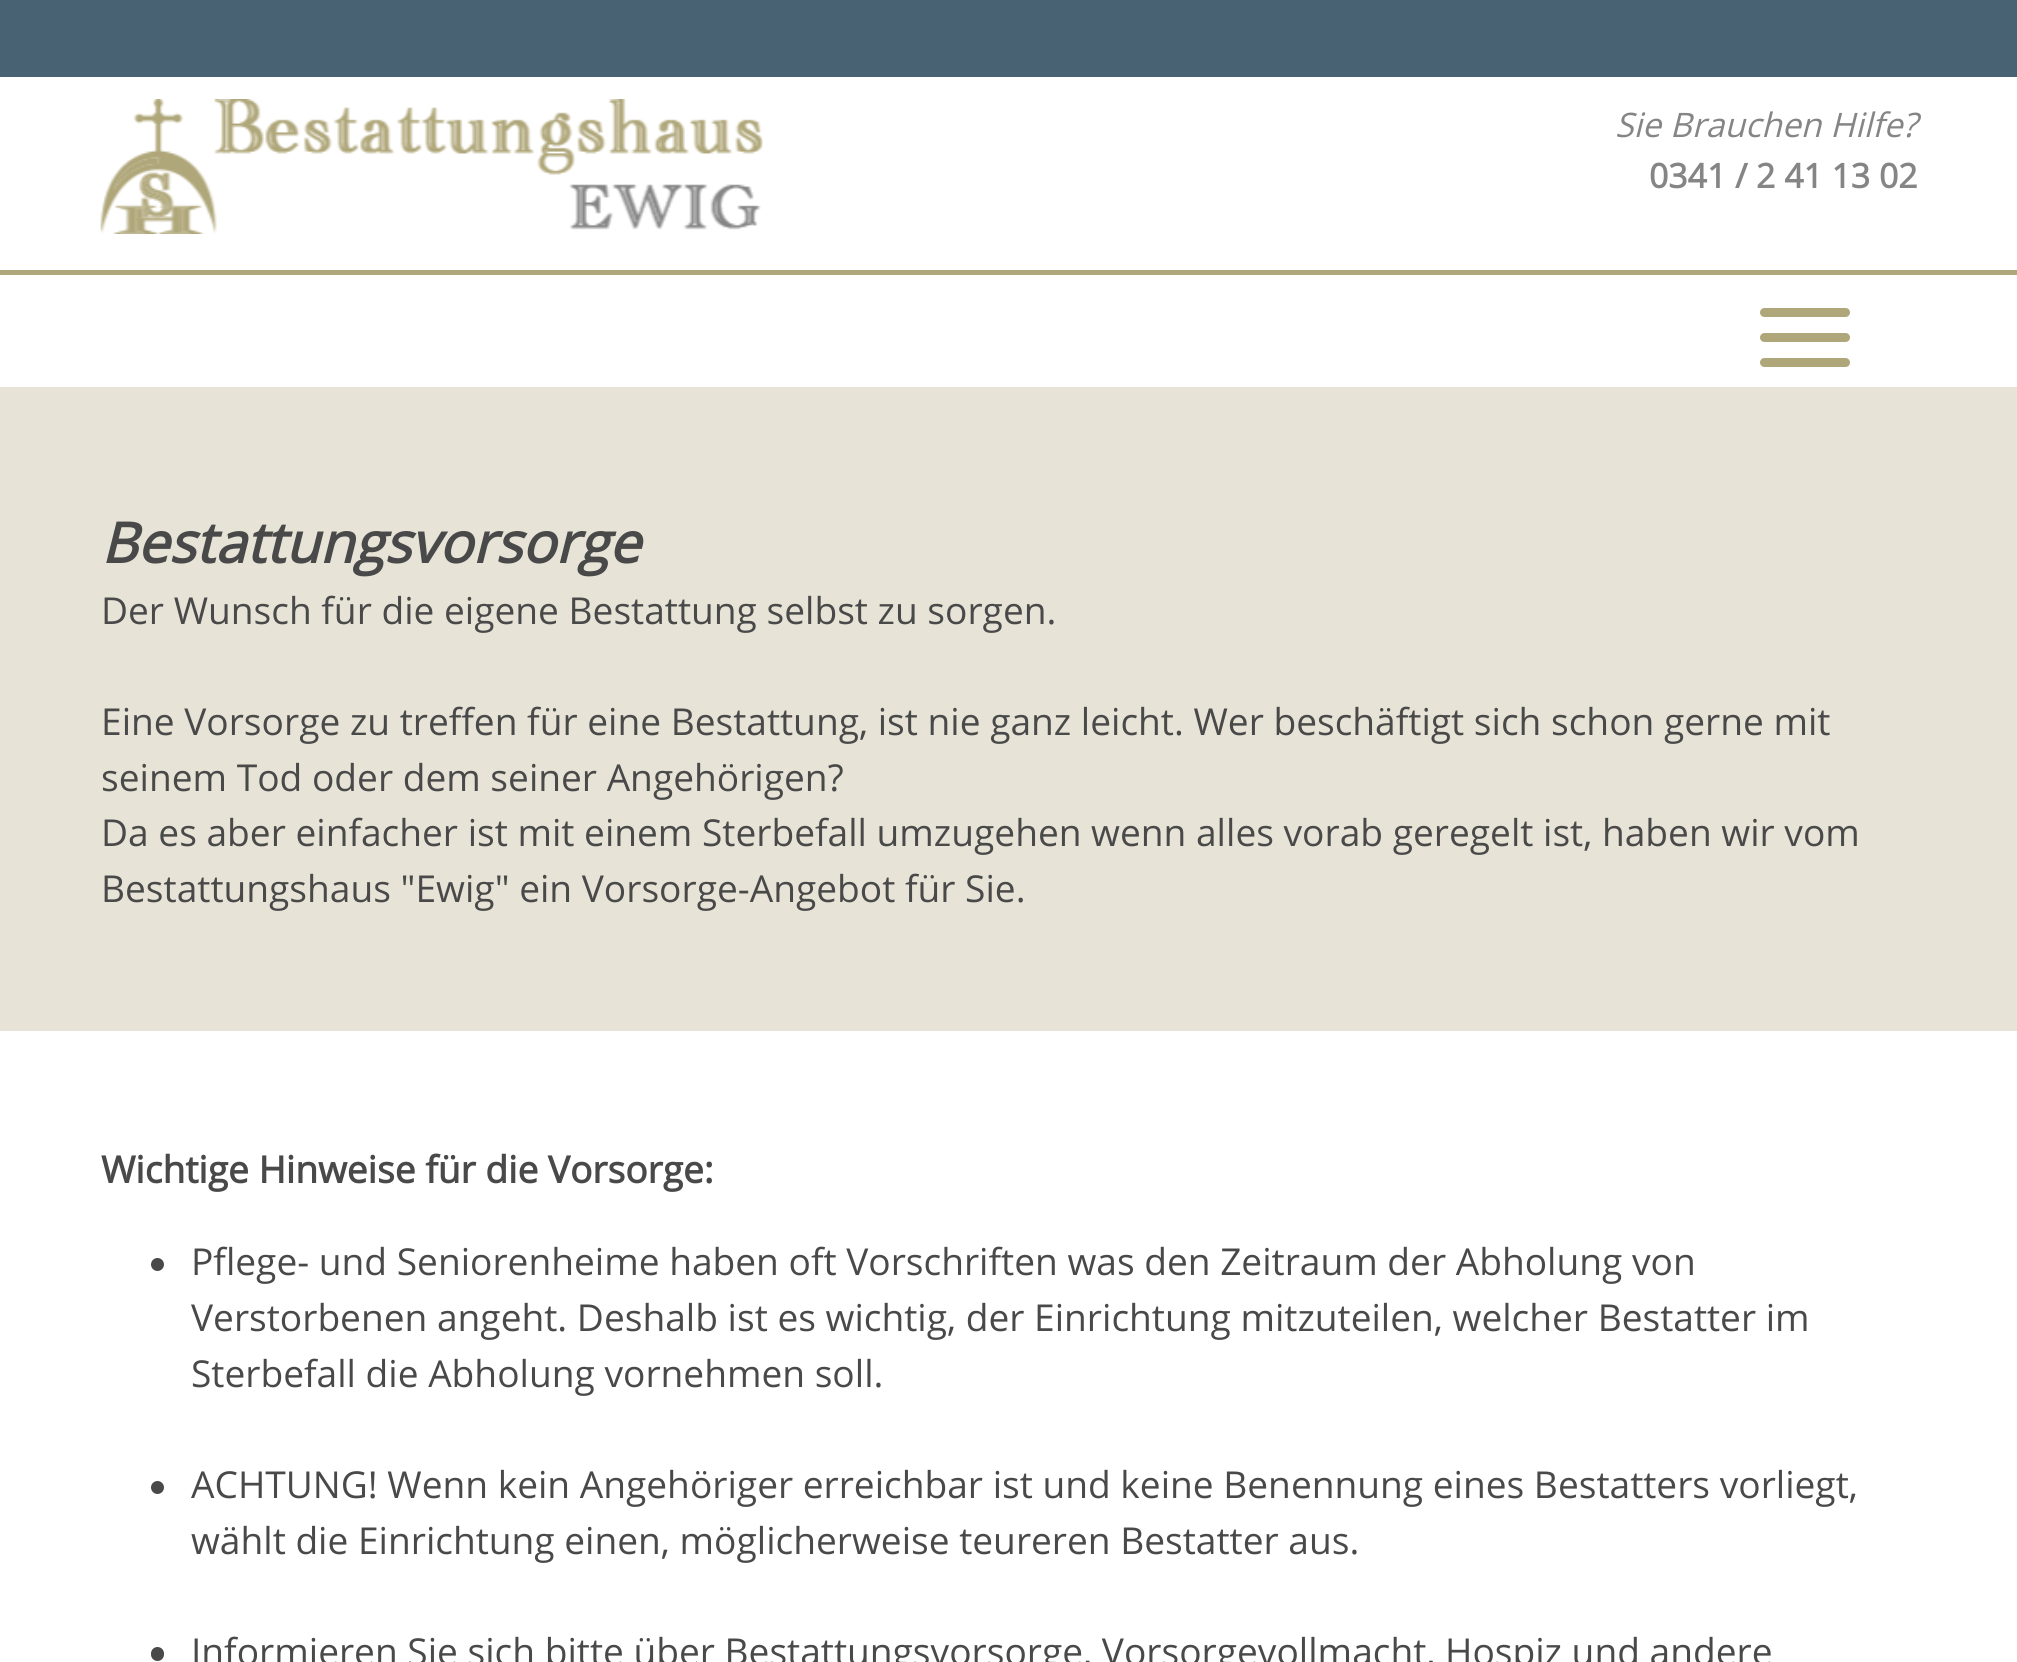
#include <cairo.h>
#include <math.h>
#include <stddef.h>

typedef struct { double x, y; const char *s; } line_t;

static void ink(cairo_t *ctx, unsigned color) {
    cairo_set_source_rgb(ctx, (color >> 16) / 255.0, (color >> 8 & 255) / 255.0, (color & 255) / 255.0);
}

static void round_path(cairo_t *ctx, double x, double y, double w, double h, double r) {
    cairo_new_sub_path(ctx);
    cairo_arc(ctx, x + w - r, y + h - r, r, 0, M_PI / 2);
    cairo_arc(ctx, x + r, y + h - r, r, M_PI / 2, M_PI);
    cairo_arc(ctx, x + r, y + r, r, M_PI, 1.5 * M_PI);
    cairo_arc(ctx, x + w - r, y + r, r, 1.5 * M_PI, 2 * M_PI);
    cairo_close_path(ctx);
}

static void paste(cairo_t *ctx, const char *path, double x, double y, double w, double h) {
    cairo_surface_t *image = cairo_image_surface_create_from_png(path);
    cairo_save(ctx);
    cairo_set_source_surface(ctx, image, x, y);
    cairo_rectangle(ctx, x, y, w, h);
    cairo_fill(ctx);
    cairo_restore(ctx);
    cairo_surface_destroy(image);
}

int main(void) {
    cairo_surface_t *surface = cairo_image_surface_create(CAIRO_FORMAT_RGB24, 2017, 1662);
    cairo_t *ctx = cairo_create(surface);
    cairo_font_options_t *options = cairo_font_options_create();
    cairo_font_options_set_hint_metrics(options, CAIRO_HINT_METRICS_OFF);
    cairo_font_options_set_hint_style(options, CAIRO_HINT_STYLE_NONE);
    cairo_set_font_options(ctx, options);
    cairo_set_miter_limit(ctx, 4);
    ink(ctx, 0xFFFFFF);
    cairo_paint(ctx);
    ink(ctx, 0x486173);
    cairo_rectangle(ctx, 0, 0, 2017, 77);
    cairo_fill(ctx);
    paste(ctx, "media/1.png", 100, 99, 663, 135);
    cairo_select_font_face(ctx, "Open Sans", CAIRO_FONT_SLANT_ITALIC, CAIRO_FONT_WEIGHT_NORMAL);
    cairo_set_font_size(ctx, 33.75);
    ink(ctx, 0x858585);
    cairo_move_to(ctx, 1615, 137);
    cairo_show_text(ctx, "Sie Brauchen Hilfe?");
    cairo_select_font_face(ctx, "Open Sans", CAIRO_FONT_SLANT_NORMAL, CAIRO_FONT_WEIGHT_BOLD);
    cairo_move_to(ctx, 1649, 188);
    cairo_show_text(ctx, "0341 / 2 41 13 02");
    ink(ctx, 0xAFA679);
    cairo_rectangle(ctx, 0, 270, 2017, 5);
    cairo_fill(ctx);
    round_path(ctx, 1760, 308, 90, 9, 4.5);
    cairo_fill(ctx);
    round_path(ctx, 1760, 333, 90, 9, 4.5);
    cairo_fill(ctx);
    round_path(ctx, 1760, 358, 90, 9, 4.5);
    cairo_fill(ctx);
    ink(ctx, 0xE7E4D7);
    cairo_rectangle(ctx, 0, 387, 2017, 644);
    cairo_fill(ctx);
    cairo_select_font_face(ctx, "Open Sans", CAIRO_FONT_SLANT_ITALIC, CAIRO_FONT_WEIGHT_BOLD);
    cairo_set_font_size(ctx, 55.75);
    ink(ctx, 0x494949);
    cairo_move_to(ctx, 101, 563);
    cairo_show_text(ctx, "Bestattungsvorsorge");
    cairo_select_font_face(ctx, "Open Sans", CAIRO_FONT_SLANT_NORMAL, CAIRO_FONT_WEIGHT_NORMAL);
    cairo_set_font_size(ctx, 37.1);
    {
        static const line_t items[] = {
            {101, 624, "Der Wunsch für die eigene Bestattung selbst zu sorgen."},
            {101, 735, "Eine Vorsorge zu treffen für eine Bestattung, ist nie ganz leicht. Wer beschäftigt sich schon gerne mit"},
            {101, 791, "seinem Tod oder dem seiner Angehörigen?"},
            {101, 846, "Da es aber einfacher ist mit einem Sterbefall umzugehen wenn alles vorab geregelt ist, haben wir vom"},
            {101, 902, "Bestattungshaus \"Ewig\" ein Vorsorge-Angebot für Sie."},
        };
        for (size_t i = 0; i < sizeof items / sizeof *items; i++) {
            cairo_move_to(ctx, items[i].x, items[i].y);
            cairo_show_text(ctx, items[i].s);
        }
    }
    cairo_select_font_face(ctx, "Open Sans", CAIRO_FONT_SLANT_NORMAL, CAIRO_FONT_WEIGHT_BOLD);
    cairo_move_to(ctx, 101, 1183);
    cairo_show_text(ctx, "Wichtige Hinweise für die Vorsorge:");
    cairo_new_path(ctx);
    cairo_arc(ctx, 157.5, 1264.5, 6.5, 0, 2 * M_PI);
    cairo_fill(ctx);
    cairo_select_font_face(ctx, "Open Sans", CAIRO_FONT_SLANT_NORMAL, CAIRO_FONT_WEIGHT_NORMAL);
    {
        static const line_t items[] = {
            {191, 1275, "Pflege- und Seniorenheime haben oft Vorschriften was den Zeitraum der Abholung von"},
            {191, 1331, "Verstorbenen angeht. Deshalb ist es wichtig, der Einrichtung mitzuteilen, welcher Bestatter im"},
            {191, 1387, "Sterbefall die Abholung vornehmen soll."},
        };
        for (size_t i = 0; i < sizeof items / sizeof *items; i++) {
            cairo_move_to(ctx, items[i].x, items[i].y);
            cairo_show_text(ctx, items[i].s);
        }
    }
    cairo_new_path(ctx);
    cairo_arc(ctx, 157.5, 1487.5, 6.5, 0, 2 * M_PI);
    cairo_fill(ctx);
    cairo_move_to(ctx, 191, 1498);
    cairo_show_text(ctx, "ACHTUNG! Wenn kein Angehöriger erreichbar ist und keine Benennung eines Bestatters vorliegt,");
    cairo_move_to(ctx, 191, 1554);
    cairo_show_text(ctx, "wählt die Einrichtung einen, möglicherweise teureren Bestatter aus.");
    round_path(ctx, 151, 1647, 13, 14, 6.5);
    cairo_fill(ctx);
    cairo_move_to(ctx, 191, 1665);
    cairo_show_text(ctx, "Informieren Sie sich bitte über Bestattungsvorsorge, Vorsorgevollmacht, Hospiz und andere");
    cairo_surface_write_to_png(surface, "image.png");
    cairo_font_options_destroy(options);
    cairo_destroy(ctx);
    cairo_surface_destroy(surface);
    return 0;
}
